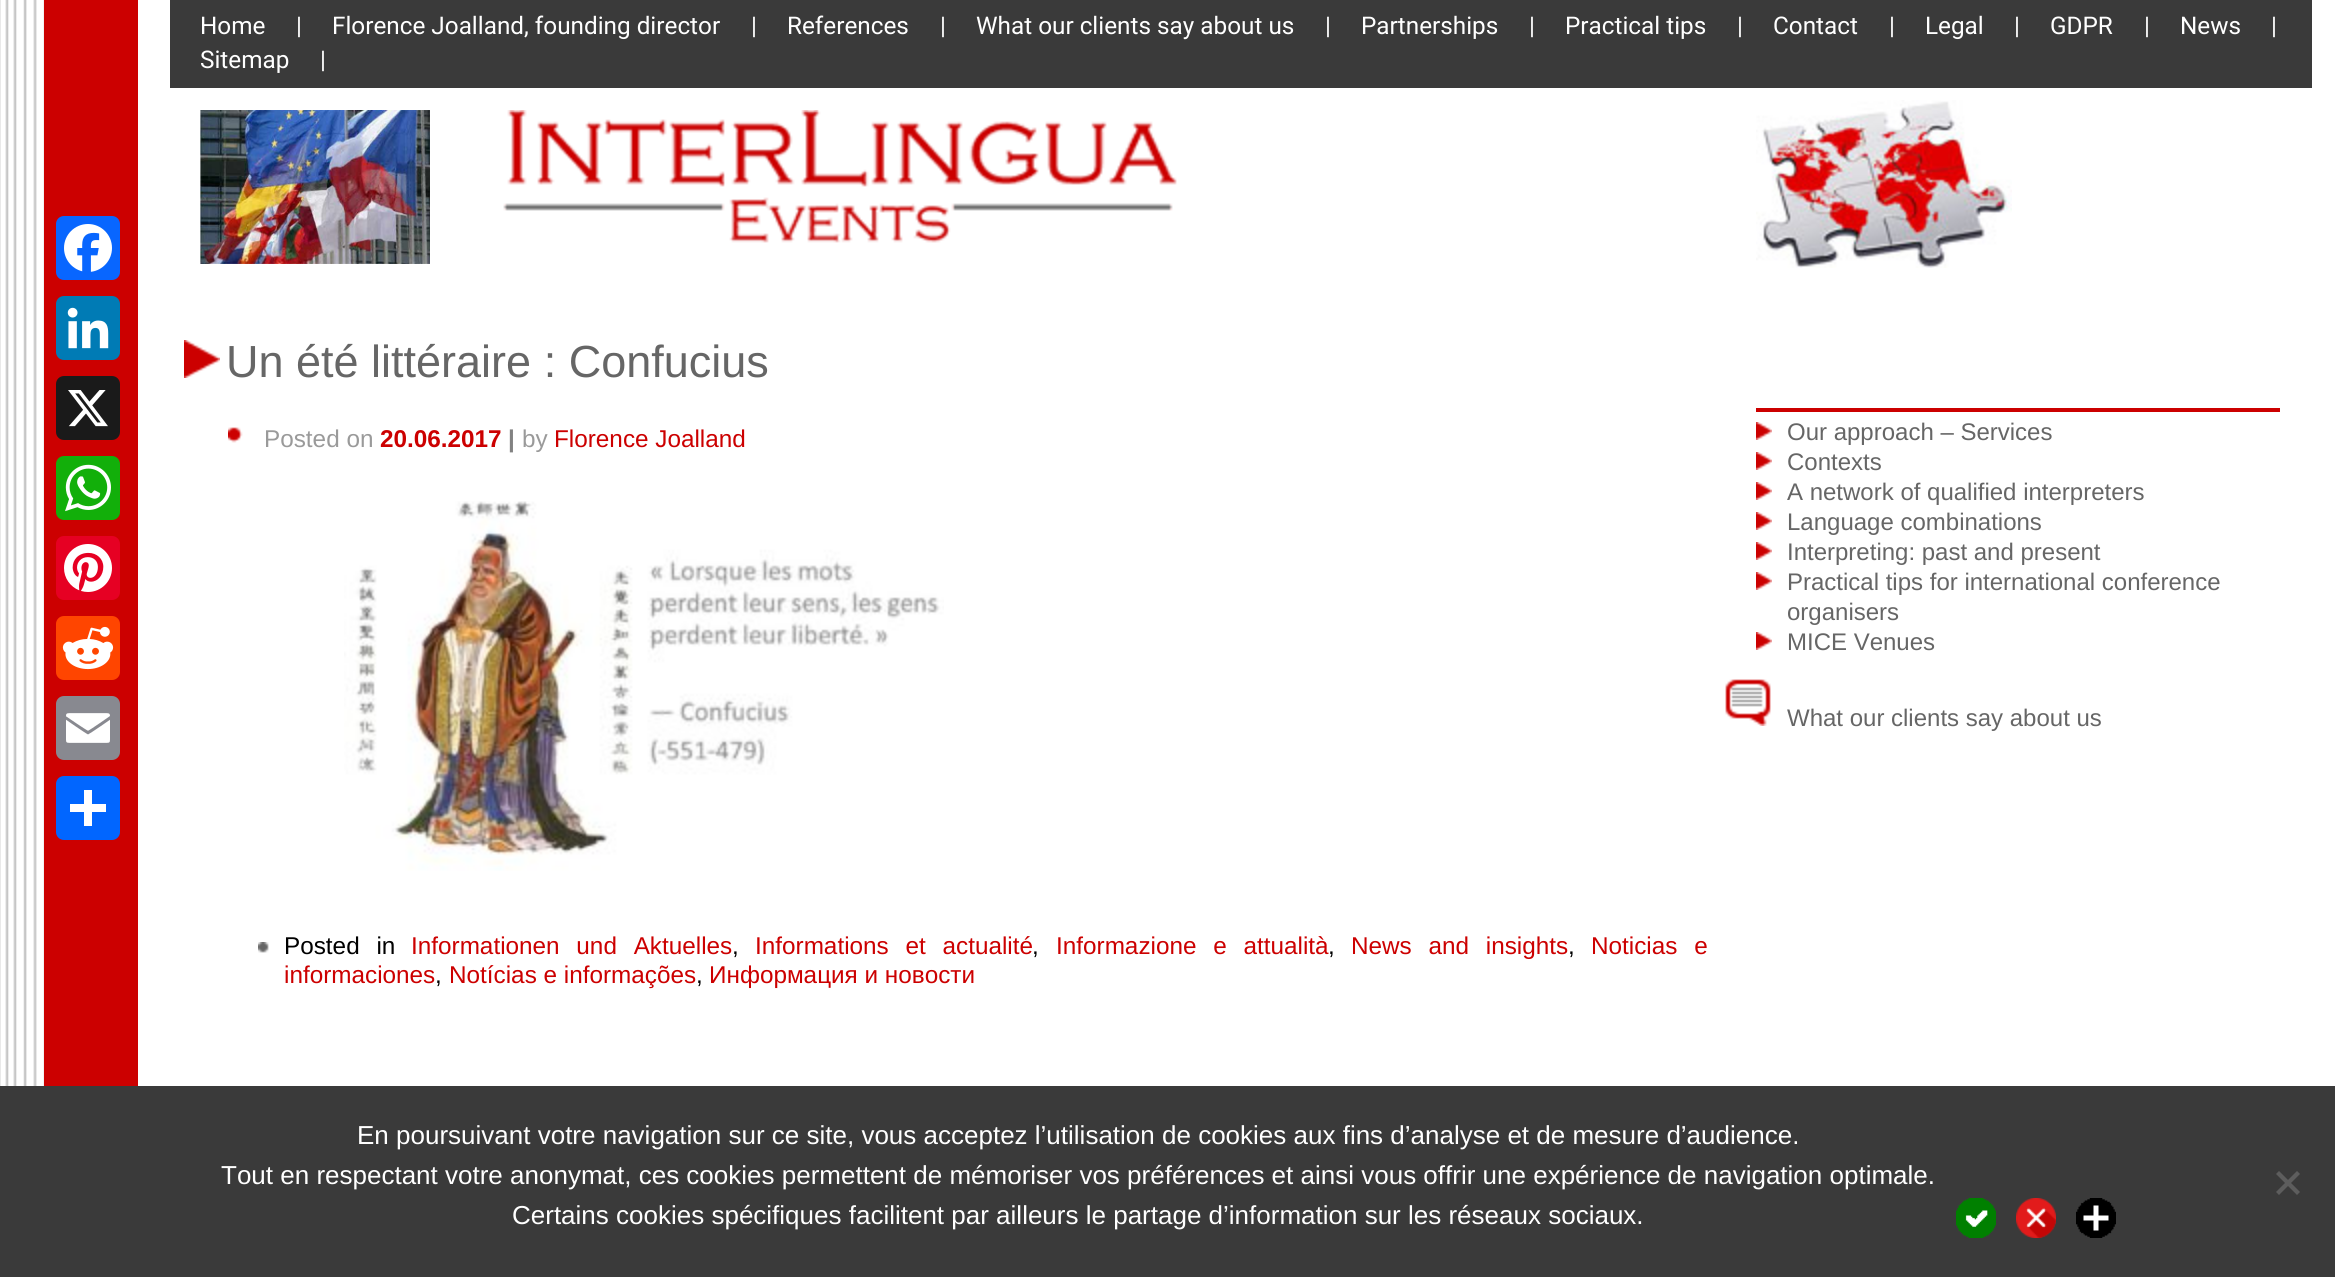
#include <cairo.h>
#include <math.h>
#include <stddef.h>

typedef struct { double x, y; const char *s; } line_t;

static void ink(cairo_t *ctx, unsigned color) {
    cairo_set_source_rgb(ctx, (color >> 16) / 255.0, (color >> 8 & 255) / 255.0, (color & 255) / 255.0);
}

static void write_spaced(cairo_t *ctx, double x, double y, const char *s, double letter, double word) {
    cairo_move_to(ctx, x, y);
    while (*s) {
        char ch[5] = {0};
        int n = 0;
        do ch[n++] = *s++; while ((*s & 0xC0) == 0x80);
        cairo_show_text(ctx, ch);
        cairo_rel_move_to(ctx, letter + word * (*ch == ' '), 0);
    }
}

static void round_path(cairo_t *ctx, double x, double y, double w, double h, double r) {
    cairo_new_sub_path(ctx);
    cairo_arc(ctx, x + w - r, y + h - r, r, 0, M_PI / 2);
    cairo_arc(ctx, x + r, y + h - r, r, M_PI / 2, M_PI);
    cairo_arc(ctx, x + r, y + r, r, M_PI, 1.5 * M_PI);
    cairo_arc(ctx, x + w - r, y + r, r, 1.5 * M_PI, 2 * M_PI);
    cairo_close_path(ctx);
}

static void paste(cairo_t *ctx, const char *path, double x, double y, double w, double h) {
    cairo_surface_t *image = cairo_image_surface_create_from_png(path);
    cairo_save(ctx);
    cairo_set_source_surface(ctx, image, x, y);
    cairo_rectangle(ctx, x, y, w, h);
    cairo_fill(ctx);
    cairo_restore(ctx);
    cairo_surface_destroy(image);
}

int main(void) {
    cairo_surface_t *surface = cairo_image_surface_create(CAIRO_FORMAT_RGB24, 2335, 1277);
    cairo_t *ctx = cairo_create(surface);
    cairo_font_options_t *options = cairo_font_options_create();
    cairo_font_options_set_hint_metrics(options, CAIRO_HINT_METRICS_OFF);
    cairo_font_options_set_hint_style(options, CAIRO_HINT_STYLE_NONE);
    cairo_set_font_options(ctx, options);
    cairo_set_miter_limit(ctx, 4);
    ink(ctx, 0xFFFFFF);
    cairo_paint(ctx);
    ink(ctx, 0xCC0000);
    cairo_rectangle(ctx, 44, 0, 94, 1086);
    cairo_fill(ctx);
    ink(ctx, 0x0866FF);
    round_path(ctx, 56, 216, 64, 64, 8);
    cairo_fill(ctx);
    paste(ctx, "media/1.png", 64, 224, 48, 48);
    ink(ctx, 0x007BB5);
    round_path(ctx, 56, 296, 64, 64, 8);
    cairo_fill(ctx);
    paste(ctx, "media/2.png", 67, 307, 42, 42);
    ink(ctx, 0x1A1A1A);
    round_path(ctx, 56, 376, 64, 64, 8);
    cairo_fill(ctx);
    paste(ctx, "media/3.png", 68, 390, 40, 37);
    ink(ctx, 0x12AF0A);
    round_path(ctx, 56, 456, 64, 64, 8);
    cairo_fill(ctx);
    paste(ctx, "media/4.png", 65, 464, 46, 48);
    ink(ctx, 0xE60023);
    round_path(ctx, 56, 536, 64, 64, 8);
    cairo_fill(ctx);
    paste(ctx, "media/5.png", 64, 544, 48, 48);
    ink(ctx, 0xFF4500);
    round_path(ctx, 56, 616, 64, 64, 8);
    cairo_fill(ctx);
    paste(ctx, "media/6.png", 62, 626, 52, 44);
    ink(ctx, 0x888990);
    round_path(ctx, 56, 696, 64, 64, 8);
    cairo_fill(ctx);
    paste(ctx, "media/7.png", 66, 713, 44, 30);
    ink(ctx, 0x0166FF);
    round_path(ctx, 56, 776, 64, 64, 8);
    cairo_fill(ctx);
    ink(ctx, 0xFFFFFF);
    cairo_rectangle(ctx, 84, 790, 8, 36);
    cairo_fill(ctx);
    cairo_rectangle(ctx, 70, 804, 36, 8);
    cairo_fill(ctx);
    paste(ctx, "media/8.png", 0, 0, 44, 1086);
    ink(ctx, 0x3A3A3A);
    cairo_rectangle(ctx, 170, 0, 2142, 88);
    cairo_fill(ctx);
    cairo_select_font_face(ctx, "Roboto", CAIRO_FONT_SLANT_NORMAL, CAIRO_FONT_WEIGHT_NORMAL);
    cairo_set_font_size(ctx, 24.3);
    ink(ctx, 0xFFFFFF);
    {
        static const line_t items[] = {
            {200, 34, "Home"},
            {296, 34, "|"},
            {332, 34, "Florence Joalland, founding director"},
            {751, 34, "|"},
            {787, 34, "References"},
            {940, 34, "|"},
            {976, 34, "What our clients say about us"},
            {1325, 34, "|"},
            {1361, 34, "Partnerships"},
            {1529, 34, "|"},
            {1565, 34, "Practical tips"},
            {1737, 34, "|"},
            {1773, 34, "Contact"},
            {1889, 34, "|"},
            {1925, 34, "Legal"},
            {2014, 34, "|"},
            {2050, 34, "GDPR"},
            {2144, 34, "|"},
            {2180, 34, "News"},
            {2271, 34, "|"},
            {200, 68, "Sitemap"},
            {320, 68, "|"},
        };
        for (size_t i = 0; i < sizeof items / sizeof *items; i++) {
            cairo_move_to(ctx, items[i].x, items[i].y);
            cairo_show_text(ctx, items[i].s);
        }
    }
    paste(ctx, "media/9.png", 200, 110, 230, 154);
    paste(ctx, "media/10.png", 503, 110, 674, 133);
    paste(ctx, "media/11.png", 184, 340, 36, 38);
    cairo_select_font_face(ctx, "Liberation Sans", CAIRO_FONT_SLANT_NORMAL, CAIRO_FONT_WEIGHT_NORMAL);
    cairo_set_font_size(ctx, 45);
    ink(ctx, 0x666666);
    cairo_move_to(ctx, 226, 377);
    cairo_show_text(ctx, "Un été littéraire : Confucius");
    paste(ctx, "media/12.png", 228, 427, 15, 16);
    cairo_set_font_size(ctx, 24.3);
    ink(ctx, 0x9A9A9A);
    cairo_move_to(ctx, 264, 447);
    cairo_show_text(ctx, "Posted on");
    cairo_select_font_face(ctx, "Liberation Sans", CAIRO_FONT_SLANT_NORMAL, CAIRO_FONT_WEIGHT_BOLD);
    ink(ctx, 0xCC0000);
    cairo_move_to(ctx, 380, 447);
    cairo_show_text(ctx, "20.06.2017");
    ink(ctx, 0x828282);
    cairo_move_to(ctx, 508, 447);
    cairo_show_text(ctx, "|");
    cairo_select_font_face(ctx, "Liberation Sans", CAIRO_FONT_SLANT_NORMAL, CAIRO_FONT_WEIGHT_NORMAL);
    ink(ctx, 0x9A9A9A);
    cairo_move_to(ctx, 522, 447);
    cairo_show_text(ctx, "by");
    ink(ctx, 0xCC0000);
    cairo_move_to(ctx, 554, 447);
    cairo_show_text(ctx, "Florence Joalland");
    paste(ctx, "media/13.png", 344, 501, 600, 370);
    paste(ctx, "media/14.png", 258, 942, 11, 11);
    ink(ctx, 0x000000);
    write_spaced(ctx, 284, 954, "Posted in", 0, 10);
    ink(ctx, 0xCC0000);
    write_spaced(ctx, 411, 954, "Informationen und Aktuelles", 0, 10);
    ink(ctx, 0x000000);
    cairo_move_to(ctx, 732, 954);
    cairo_show_text(ctx, ",");
    ink(ctx, 0xCC0000);
    write_spaced(ctx, 755, 954, "Informations et actualité", 0, 10);
    ink(ctx, 0x000000);
    cairo_move_to(ctx, 1032, 954);
    cairo_show_text(ctx, ",");
    ink(ctx, 0xCC0000);
    write_spaced(ctx, 1056, 954, "Informazione e attualità", 0, 10);
    ink(ctx, 0x000000);
    cairo_move_to(ctx, 1328, 954);
    cairo_show_text(ctx, ",");
    ink(ctx, 0xCC0000);
    write_spaced(ctx, 1351, 954, "News and insights", 0, 10);
    ink(ctx, 0x000000);
    cairo_move_to(ctx, 1568, 954);
    cairo_show_text(ctx, ",");
    ink(ctx, 0xCC0000);
    write_spaced(ctx, 1591, 954, "Noticias e", 0, 10);
    cairo_move_to(ctx, 284, 983);
    cairo_show_text(ctx, "informaciones");
    ink(ctx, 0x000000);
    cairo_move_to(ctx, 435, 983);
    cairo_show_text(ctx, ",");
    ink(ctx, 0xCC0000);
    cairo_move_to(ctx, 449, 983);
    cairo_show_text(ctx, "Notícias e informações");
    ink(ctx, 0x000000);
    cairo_move_to(ctx, 696, 983);
    cairo_show_text(ctx, ",");
    ink(ctx, 0xCC0000);
    cairo_move_to(ctx, 709, 983);
    cairo_show_text(ctx, "Информация и новости");
    paste(ctx, "media/15.png", 1756, 100, 256, 168);
    cairo_rectangle(ctx, 1756, 408, 524, 4);
    cairo_fill(ctx);
    paste(ctx, "media/16.png", 1756, 422, 16, 18);
    cairo_set_font_size(ctx, 24);
    ink(ctx, 0x666666);
    cairo_move_to(ctx, 1787, 440);
    cairo_show_text(ctx, "Our approach – Services");
    paste(ctx, "media/16.png", 1756, 452, 16, 18);
    cairo_move_to(ctx, 1787, 470);
    cairo_show_text(ctx, "Contexts");
    paste(ctx, "media/16.png", 1756, 482, 16, 18);
    cairo_move_to(ctx, 1787, 500);
    cairo_show_text(ctx, "A network of qualified interpreters");
    paste(ctx, "media/16.png", 1756, 512, 16, 18);
    cairo_move_to(ctx, 1787, 530);
    cairo_show_text(ctx, "Language combinations");
    paste(ctx, "media/16.png", 1756, 542, 16, 18);
    cairo_move_to(ctx, 1787, 560);
    cairo_show_text(ctx, "Interpreting: past and present");
    paste(ctx, "media/16.png", 1756, 572, 16, 18);
    cairo_move_to(ctx, 1787, 590);
    cairo_show_text(ctx, "Practical tips for international conference");
    cairo_move_to(ctx, 1787, 620);
    cairo_show_text(ctx, "organisers");
    paste(ctx, "media/16.png", 1756, 632, 16, 18);
    cairo_move_to(ctx, 1787, 650);
    cairo_show_text(ctx, "MICE Venues");
    paste(ctx, "media/17.png", 1725, 679, 46, 47);
    cairo_move_to(ctx, 1787, 726);
    cairo_show_text(ctx, "What our clients say about us");
    ink(ctx, 0x3A3A3A);
    cairo_rectangle(ctx, 0, 1086, 2335, 191);
    cairo_fill(ctx);
    cairo_set_font_size(ctx, 26);
    ink(ctx, 0xFFFFFF);
    {
        static const line_t items[] = {
            {357, 1144, "En poursuivant votre navigation sur ce site, vous acceptez l’utilisation de cookies aux fins d’analyse et de mesure d’audience."},
            {221, 1184, "Tout en respectant votre anonymat, ces cookies permettent de mémoriser vos préférences et ainsi vous offrir une expérience de navigation optimale."},
            {512, 1224, "Certains cookies spécifiques facilitent par ailleurs le partage d’information sur les réseaux sociaux."},
        };
        for (size_t i = 0; i < sizeof items / sizeof *items; i++) {
            cairo_move_to(ctx, items[i].x, items[i].y);
            cairo_show_text(ctx, items[i].s);
        }
    }
    ink(ctx, 0x5D5D5D);
    cairo_new_path(ctx);
    cairo_move_to(ctx, 2297, 1171);
    cairo_line_to(ctx, 2300, 1174);
    cairo_line_to(ctx, 2279, 1195);
    cairo_line_to(ctx, 2276, 1192);
    cairo_close_path(ctx);
    cairo_fill(ctx);
    cairo_new_path(ctx);
    cairo_move_to(ctx, 2276, 1174);
    cairo_line_to(ctx, 2279, 1171);
    cairo_line_to(ctx, 2300, 1192);
    cairo_line_to(ctx, 2297, 1195);
    cairo_close_path(ctx);
    cairo_fill(ctx);
    paste(ctx, "media/18.png", 1956, 1198, 40, 40);
    paste(ctx, "media/19.png", 2016, 1198, 40, 40);
    paste(ctx, "media/20.png", 2076, 1198, 40, 40);
    cairo_surface_write_to_png(surface, "image.png");
    cairo_font_options_destroy(options);
    cairo_destroy(ctx);
    cairo_surface_destroy(surface);
    return 0;
}
